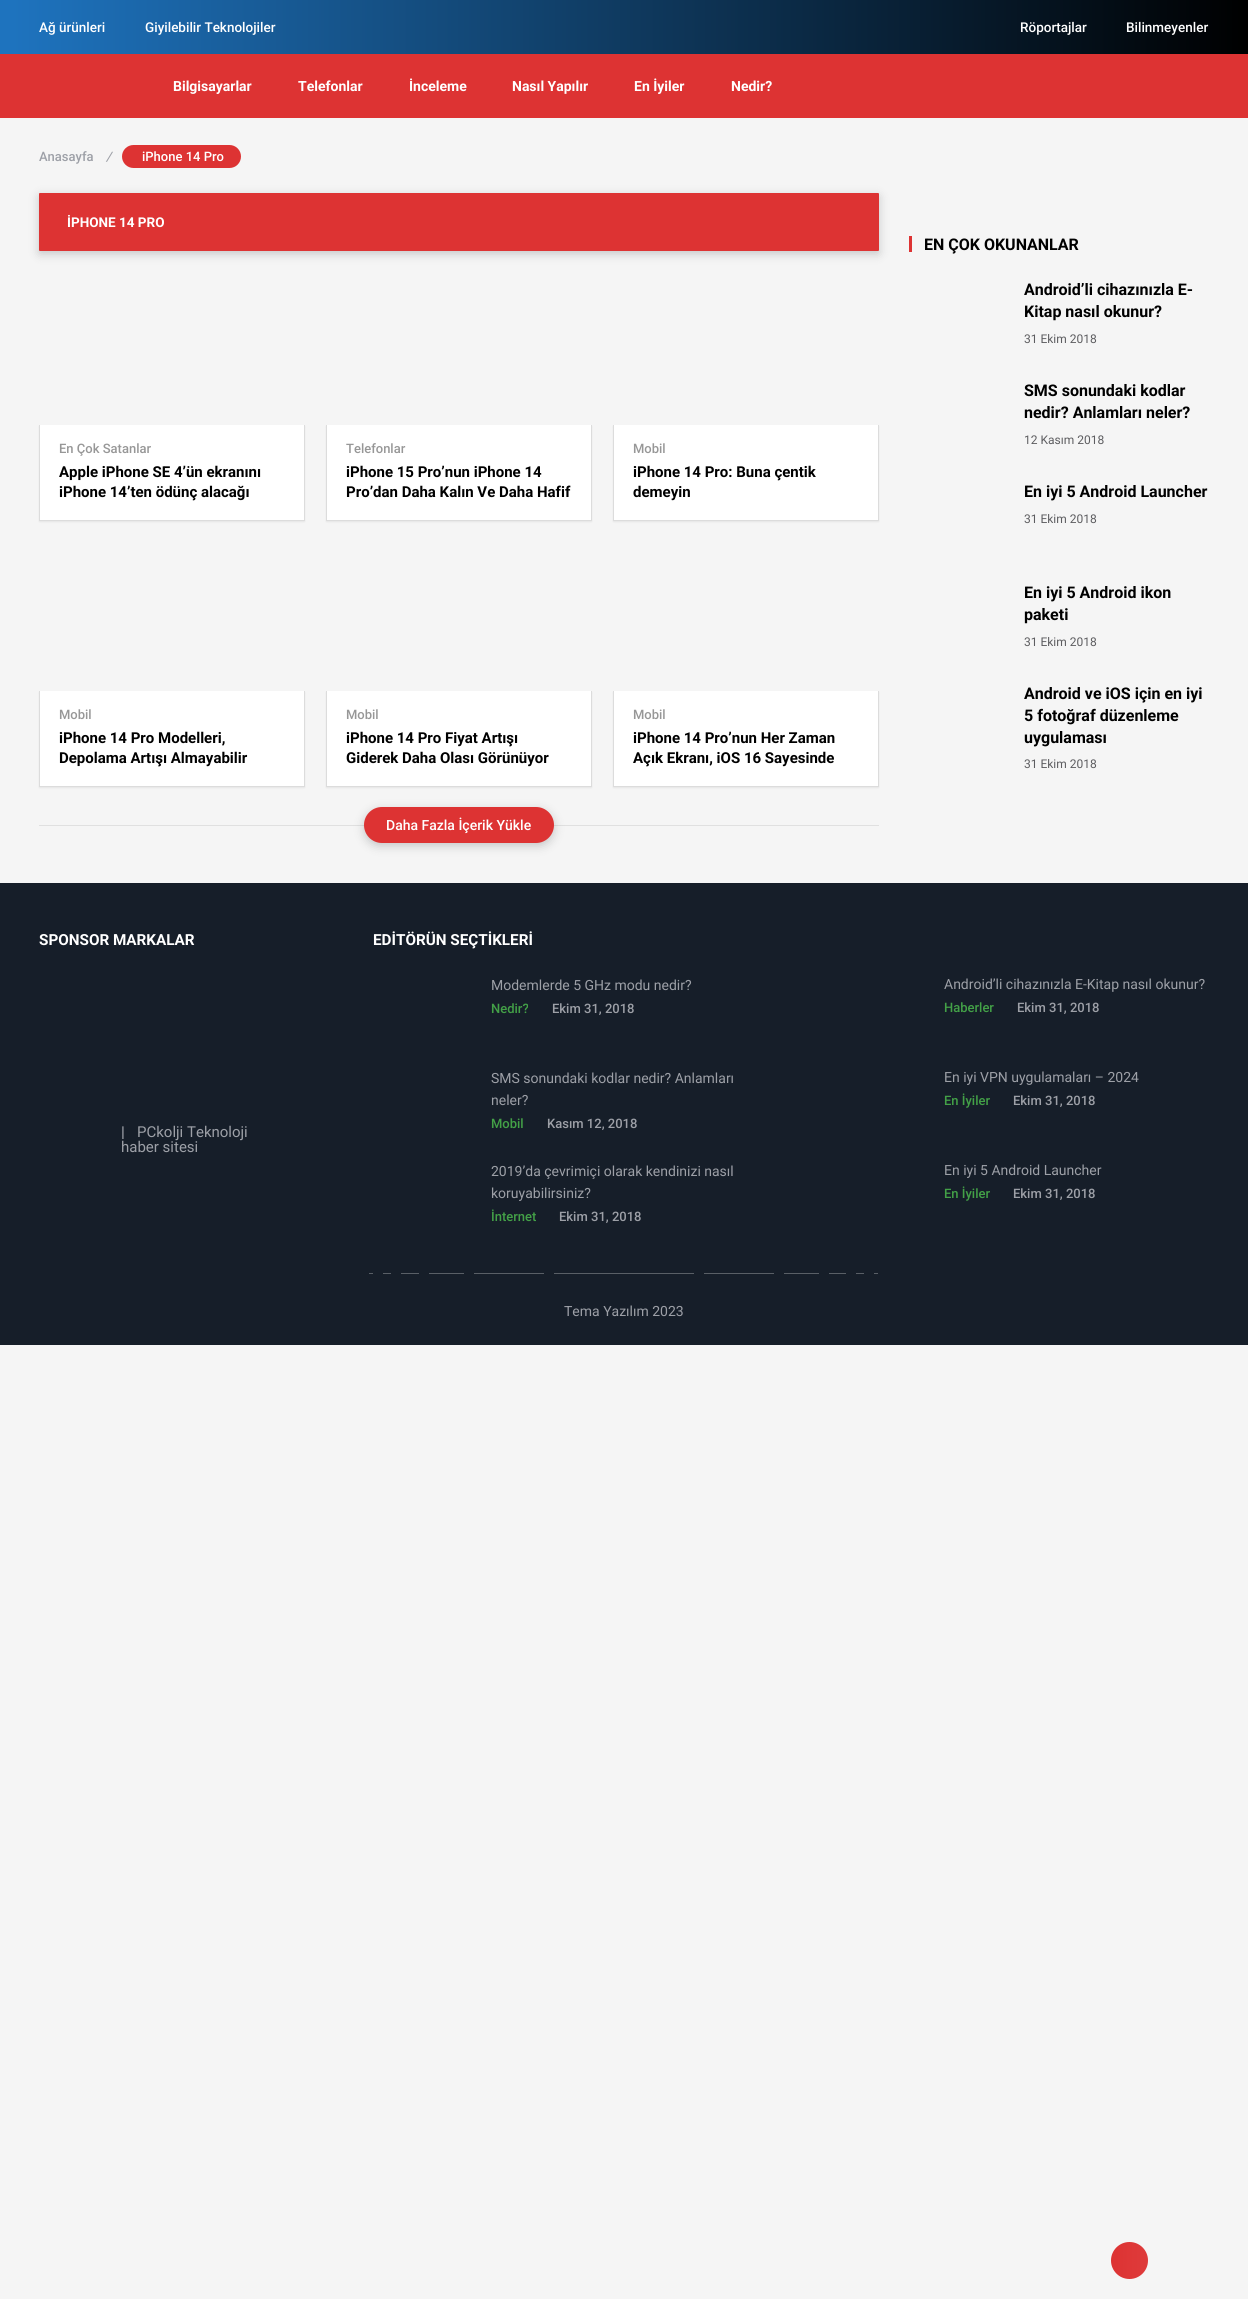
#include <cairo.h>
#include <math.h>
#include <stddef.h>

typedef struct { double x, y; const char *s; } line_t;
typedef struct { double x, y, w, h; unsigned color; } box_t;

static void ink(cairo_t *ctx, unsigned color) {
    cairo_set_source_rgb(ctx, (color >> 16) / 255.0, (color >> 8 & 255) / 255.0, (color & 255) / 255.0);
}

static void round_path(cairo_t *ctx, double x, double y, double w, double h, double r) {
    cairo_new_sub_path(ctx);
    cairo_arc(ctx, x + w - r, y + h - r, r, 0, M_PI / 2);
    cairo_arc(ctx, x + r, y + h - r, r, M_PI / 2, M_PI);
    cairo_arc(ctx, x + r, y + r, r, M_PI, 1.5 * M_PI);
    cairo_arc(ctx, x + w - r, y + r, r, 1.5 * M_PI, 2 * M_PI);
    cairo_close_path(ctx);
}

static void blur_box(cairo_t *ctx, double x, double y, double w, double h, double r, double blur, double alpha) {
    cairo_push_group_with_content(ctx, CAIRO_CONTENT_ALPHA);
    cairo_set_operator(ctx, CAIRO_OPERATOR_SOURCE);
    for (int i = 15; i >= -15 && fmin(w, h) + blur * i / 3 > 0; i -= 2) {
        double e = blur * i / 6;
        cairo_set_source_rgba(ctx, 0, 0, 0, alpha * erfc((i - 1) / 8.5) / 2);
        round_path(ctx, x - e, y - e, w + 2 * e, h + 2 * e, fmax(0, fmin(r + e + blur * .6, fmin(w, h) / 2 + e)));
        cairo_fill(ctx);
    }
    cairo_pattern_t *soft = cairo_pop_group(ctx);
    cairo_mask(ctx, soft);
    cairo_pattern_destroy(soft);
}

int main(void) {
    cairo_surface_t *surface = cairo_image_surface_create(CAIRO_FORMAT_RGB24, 1248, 2299);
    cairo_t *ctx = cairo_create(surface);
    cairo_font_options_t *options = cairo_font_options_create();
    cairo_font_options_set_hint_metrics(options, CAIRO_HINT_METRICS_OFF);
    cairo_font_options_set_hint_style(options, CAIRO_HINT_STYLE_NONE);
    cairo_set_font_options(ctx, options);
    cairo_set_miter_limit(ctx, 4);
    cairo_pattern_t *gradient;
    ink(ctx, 0xF5F5F5);
    cairo_paint(ctx);
    gradient = cairo_pattern_create_linear(0, 27, 1248, 27);
    cairo_pattern_add_color_stop_rgba(gradient, 0.01, 0.118, 0.451, 0.745, 1);
    cairo_pattern_add_color_stop_rgba(gradient, 1, 0, 0, 0, 1);
    cairo_set_source(ctx, gradient);
    cairo_pattern_destroy(gradient);
    cairo_rectangle(ctx, 0, 0, 1248, 54);
    cairo_fill(ctx);
    cairo_select_font_face(ctx, "Roboto Medium", CAIRO_FONT_SLANT_NORMAL, CAIRO_FONT_WEIGHT_NORMAL);
    cairo_set_font_size(ctx, 13.5);
    ink(ctx, 0xFFFFFF);
    {
        static const line_t items[] = {
            {39, 32, "Ağ ürünleri"},
            {145, 32, "Giyilebilir Teknolojiler"},
            {1020, 32, "Röportajlar"},
            {1126, 32, "Bilinmeyenler"},
        };
        for (size_t i = 0; i < sizeof items / sizeof *items; i++) {
            cairo_move_to(ctx, items[i].x, items[i].y);
            cairo_show_text(ctx, items[i].s);
        }
    }
    ink(ctx, 0xDD3333);
    cairo_rectangle(ctx, 0, 54, 1248, 64);
    cairo_fill(ctx);
    cairo_select_font_face(ctx, "Roboto", CAIRO_FONT_SLANT_NORMAL, CAIRO_FONT_WEIGHT_BOLD);
    cairo_set_font_size(ctx, 14);
    ink(ctx, 0xFFFFFF);
    {
        static const line_t items[] = {
            {173, 91, "Bilgisayarlar"},
            {298, 91, "Telefonlar"},
            {409, 91, "İnceleme"},
            {512, 91, "Nasıl Yapılır"},
            {634, 91, "En İyiler"},
            {731, 91, "Nedir?"},
        };
        for (size_t i = 0; i < sizeof items / sizeof *items; i++) {
            cairo_move_to(ctx, items[i].x, items[i].y);
            cairo_show_text(ctx, items[i].s);
        }
    }
    cairo_select_font_face(ctx, "Roboto Medium", CAIRO_FONT_SLANT_NORMAL, CAIRO_FONT_WEIGHT_NORMAL);
    cairo_set_font_size(ctx, 13);
    ink(ctx, 0x9DA0A7);
    cairo_move_to(ctx, 39, 161);
    cairo_show_text(ctx, "Anasayfa");
    cairo_select_font_face(ctx, "Roboto Medium", CAIRO_FONT_SLANT_ITALIC, CAIRO_FONT_WEIGHT_NORMAL);
    cairo_move_to(ctx, 106, 161);
    cairo_show_text(ctx, "/");
    ink(ctx, 0xDD3333);
    round_path(ctx, 122, 145, 119, 23, 11.5);
    cairo_fill(ctx);
    cairo_select_font_face(ctx, "Roboto Medium", CAIRO_FONT_SLANT_NORMAL, CAIRO_FONT_WEIGHT_NORMAL);
    ink(ctx, 0xFFFFFF);
    cairo_move_to(ctx, 142, 161);
    cairo_show_text(ctx, "iPhone 14 Pro");
    ink(ctx, 0x111519);
    blur_box(ctx, 39, 196, 840, 58, 1, 5, 0.21);
    ink(ctx, 0xDD3333);
    round_path(ctx, 39, 193, 840, 58, 1);
    cairo_fill(ctx);
    cairo_select_font_face(ctx, "Roboto", CAIRO_FONT_SLANT_NORMAL, CAIRO_FONT_WEIGHT_BOLD);
    cairo_set_font_size(ctx, 13.5);
    ink(ctx, 0xFFFFFF);
    cairo_move_to(ctx, 67, 227);
    cairo_show_text(ctx, "İPHONE 14 PRO");
    ink(ctx, 0x000000);
    blur_box(ctx, 39, 426, 266, 96, 1, 1, 0.07);
    {
        static const box_t items[] = {
            {40, 425, 264, 95, 0xFFFFFF},
            {304, 425, 1, 96, 0xDCDCDC},
            {40, 520, 265, 1, 0xDCDCDC},
            {39, 425, 1, 96, 0xDCDCDC},
        };
        for (size_t i = 0; i < sizeof items / sizeof *items; i++) {
            ink(ctx, items[i].color);
            cairo_rectangle(ctx, items[i].x, items[i].y, items[i].w, items[i].h);
            cairo_fill(ctx);
        }
    }
    cairo_select_font_face(ctx, "Roboto Medium", CAIRO_FONT_SLANT_NORMAL, CAIRO_FONT_WEIGHT_NORMAL);
    cairo_set_font_size(ctx, 13);
    ink(ctx, 0x979797);
    cairo_move_to(ctx, 59, 453);
    cairo_show_text(ctx, "En Çok Satanlar");
    cairo_select_font_face(ctx, "Roboto", CAIRO_FONT_SLANT_NORMAL, CAIRO_FONT_WEIGHT_BOLD);
    cairo_set_font_size(ctx, 15);
    ink(ctx, 0x000000);
    cairo_move_to(ctx, 59, 477);
    cairo_show_text(ctx, "Apple iPhone SE 4’ün ekranını");
    cairo_move_to(ctx, 59, 497);
    cairo_show_text(ctx, "iPhone 14’ten ödünç alacağı");
    ink(ctx, 0x000000);
    blur_box(ctx, 326, 426, 266, 96, 1, 1, 0.07);
    {
        static const box_t items[] = {
            {327, 425, 264, 95, 0xFFFFFF},
            {591, 425, 1, 96, 0xDCDCDC},
            {327, 520, 265, 1, 0xDCDCDC},
            {326, 425, 1, 96, 0xDCDCDC},
        };
        for (size_t i = 0; i < sizeof items / sizeof *items; i++) {
            ink(ctx, items[i].color);
            cairo_rectangle(ctx, items[i].x, items[i].y, items[i].w, items[i].h);
            cairo_fill(ctx);
        }
    }
    cairo_select_font_face(ctx, "Roboto Medium", CAIRO_FONT_SLANT_NORMAL, CAIRO_FONT_WEIGHT_NORMAL);
    cairo_set_font_size(ctx, 13);
    ink(ctx, 0x979797);
    cairo_move_to(ctx, 346, 453);
    cairo_show_text(ctx, "Telefonlar");
    cairo_select_font_face(ctx, "Roboto", CAIRO_FONT_SLANT_NORMAL, CAIRO_FONT_WEIGHT_BOLD);
    cairo_set_font_size(ctx, 15);
    ink(ctx, 0x000000);
    cairo_move_to(ctx, 346, 477);
    cairo_show_text(ctx, "iPhone 15 Pro’nun iPhone 14");
    cairo_move_to(ctx, 346, 497);
    cairo_show_text(ctx, "Pro’dan Daha Kalın Ve Daha Hafif");
    ink(ctx, 0x000000);
    blur_box(ctx, 613, 426, 266, 96, 1, 1, 0.07);
    {
        static const box_t items[] = {
            {614, 425, 264, 95, 0xFFFFFF},
            {878, 425, 1, 96, 0xDCDCDC},
            {614, 520, 265, 1, 0xDCDCDC},
            {613, 425, 1, 96, 0xDCDCDC},
        };
        for (size_t i = 0; i < sizeof items / sizeof *items; i++) {
            ink(ctx, items[i].color);
            cairo_rectangle(ctx, items[i].x, items[i].y, items[i].w, items[i].h);
            cairo_fill(ctx);
        }
    }
    cairo_select_font_face(ctx, "Roboto Medium", CAIRO_FONT_SLANT_NORMAL, CAIRO_FONT_WEIGHT_NORMAL);
    cairo_set_font_size(ctx, 13);
    ink(ctx, 0x979797);
    cairo_move_to(ctx, 633, 453);
    cairo_show_text(ctx, "Mobil");
    cairo_select_font_face(ctx, "Roboto", CAIRO_FONT_SLANT_NORMAL, CAIRO_FONT_WEIGHT_BOLD);
    cairo_set_font_size(ctx, 15);
    ink(ctx, 0x000000);
    cairo_move_to(ctx, 633, 477);
    cairo_show_text(ctx, "iPhone 14 Pro: Buna çentik");
    cairo_move_to(ctx, 633, 497);
    cairo_show_text(ctx, "demeyin");
    ink(ctx, 0x000000);
    blur_box(ctx, 39, 692, 266, 96, 1, 1, 0.07);
    {
        static const box_t items[] = {
            {40, 691, 264, 95, 0xFFFFFF},
            {304, 691, 1, 96, 0xDCDCDC},
            {40, 786, 265, 1, 0xDCDCDC},
            {39, 691, 1, 96, 0xDCDCDC},
        };
        for (size_t i = 0; i < sizeof items / sizeof *items; i++) {
            ink(ctx, items[i].color);
            cairo_rectangle(ctx, items[i].x, items[i].y, items[i].w, items[i].h);
            cairo_fill(ctx);
        }
    }
    cairo_select_font_face(ctx, "Roboto Medium", CAIRO_FONT_SLANT_NORMAL, CAIRO_FONT_WEIGHT_NORMAL);
    cairo_set_font_size(ctx, 13);
    ink(ctx, 0x979797);
    cairo_move_to(ctx, 59, 719);
    cairo_show_text(ctx, "Mobil");
    cairo_select_font_face(ctx, "Roboto", CAIRO_FONT_SLANT_NORMAL, CAIRO_FONT_WEIGHT_BOLD);
    cairo_set_font_size(ctx, 15);
    ink(ctx, 0x000000);
    cairo_move_to(ctx, 59, 743);
    cairo_show_text(ctx, "iPhone 14 Pro Modelleri,");
    cairo_move_to(ctx, 59, 763);
    cairo_show_text(ctx, "Depolama Artışı Almayabilir");
    ink(ctx, 0x000000);
    blur_box(ctx, 326, 692, 266, 96, 1, 1, 0.07);
    {
        static const box_t items[] = {
            {327, 691, 264, 95, 0xFFFFFF},
            {591, 691, 1, 96, 0xDCDCDC},
            {327, 786, 265, 1, 0xDCDCDC},
            {326, 691, 1, 96, 0xDCDCDC},
        };
        for (size_t i = 0; i < sizeof items / sizeof *items; i++) {
            ink(ctx, items[i].color);
            cairo_rectangle(ctx, items[i].x, items[i].y, items[i].w, items[i].h);
            cairo_fill(ctx);
        }
    }
    cairo_select_font_face(ctx, "Roboto Medium", CAIRO_FONT_SLANT_NORMAL, CAIRO_FONT_WEIGHT_NORMAL);
    cairo_set_font_size(ctx, 13);
    ink(ctx, 0x979797);
    cairo_move_to(ctx, 346, 719);
    cairo_show_text(ctx, "Mobil");
    cairo_select_font_face(ctx, "Roboto", CAIRO_FONT_SLANT_NORMAL, CAIRO_FONT_WEIGHT_BOLD);
    cairo_set_font_size(ctx, 15);
    ink(ctx, 0x000000);
    cairo_move_to(ctx, 346, 743);
    cairo_show_text(ctx, "iPhone 14 Pro Fiyat Artışı");
    cairo_move_to(ctx, 346, 763);
    cairo_show_text(ctx, "Giderek Daha Olası Görünüyor");
    ink(ctx, 0x000000);
    blur_box(ctx, 613, 692, 266, 96, 1, 1, 0.07);
    {
        static const box_t items[] = {
            {614, 691, 264, 95, 0xFFFFFF},
            {878, 691, 1, 96, 0xDCDCDC},
            {614, 786, 265, 1, 0xDCDCDC},
            {613, 691, 1, 96, 0xDCDCDC},
        };
        for (size_t i = 0; i < sizeof items / sizeof *items; i++) {
            ink(ctx, items[i].color);
            cairo_rectangle(ctx, items[i].x, items[i].y, items[i].w, items[i].h);
            cairo_fill(ctx);
        }
    }
    cairo_select_font_face(ctx, "Roboto Medium", CAIRO_FONT_SLANT_NORMAL, CAIRO_FONT_WEIGHT_NORMAL);
    cairo_set_font_size(ctx, 13);
    ink(ctx, 0x979797);
    cairo_move_to(ctx, 633, 719);
    cairo_show_text(ctx, "Mobil");
    cairo_select_font_face(ctx, "Roboto", CAIRO_FONT_SLANT_NORMAL, CAIRO_FONT_WEIGHT_BOLD);
    cairo_set_font_size(ctx, 15);
    ink(ctx, 0x000000);
    cairo_move_to(ctx, 633, 743);
    cairo_show_text(ctx, "iPhone 14 Pro’nun Her Zaman");
    cairo_move_to(ctx, 633, 763);
    cairo_show_text(ctx, "Açık Ekranı, iOS 16 Sayesinde");
    ink(ctx, 0xE0E0E0);
    cairo_rectangle(ctx, 39, 825, 840, 1);
    cairo_fill(ctx);
    ink(ctx, 0x111519);
    blur_box(ctx, 364, 810, 190, 36, 18, 5, 0.21);
    ink(ctx, 0xDD3333);
    round_path(ctx, 364, 807, 190, 36, 18);
    cairo_fill(ctx);
    cairo_select_font_face(ctx, "Roboto Medium", CAIRO_FONT_SLANT_NORMAL, CAIRO_FONT_WEIGHT_NORMAL);
    cairo_set_font_size(ctx, 14);
    ink(ctx, 0xFFFFFF);
    cairo_move_to(ctx, 386, 830);
    cairo_show_text(ctx, "Daha Fazla İçerik Yükle");
    ink(ctx, 0xDD3333);
    cairo_rectangle(ctx, 909, 236, 3, 16);
    cairo_fill(ctx);
    cairo_select_font_face(ctx, "Roboto", CAIRO_FONT_SLANT_NORMAL, CAIRO_FONT_WEIGHT_BOLD);
    cairo_set_font_size(ctx, 16);
    ink(ctx, 0x000000);
    {
        static const line_t items[] = {
            {924, 250, "EN ÇOK OKUNANLAR"},
            {1024, 295, "Android’li cihazınızla E-"},
            {1024, 317, "Kitap nasıl okunur?"},
        };
        for (size_t i = 0; i < sizeof items / sizeof *items; i++) {
            cairo_move_to(ctx, items[i].x, items[i].y);
            cairo_show_text(ctx, items[i].s);
        }
    }
    cairo_select_font_face(ctx, "Roboto", CAIRO_FONT_SLANT_NORMAL, CAIRO_FONT_WEIGHT_NORMAL);
    cairo_set_font_size(ctx, 12);
    ink(ctx, 0x5D5D60);
    cairo_move_to(ctx, 1024, 343);
    cairo_show_text(ctx, "31 Ekim 2018");
    cairo_select_font_face(ctx, "Roboto", CAIRO_FONT_SLANT_NORMAL, CAIRO_FONT_WEIGHT_BOLD);
    cairo_set_font_size(ctx, 16);
    ink(ctx, 0x000000);
    cairo_move_to(ctx, 1024, 396);
    cairo_show_text(ctx, "SMS sonundaki kodlar");
    cairo_move_to(ctx, 1024, 418);
    cairo_show_text(ctx, "nedir? Anlamları neler?");
    cairo_select_font_face(ctx, "Roboto", CAIRO_FONT_SLANT_NORMAL, CAIRO_FONT_WEIGHT_NORMAL);
    cairo_set_font_size(ctx, 12);
    ink(ctx, 0x5D5D60);
    cairo_move_to(ctx, 1024, 444);
    cairo_show_text(ctx, "12 Kasım 2018");
    cairo_select_font_face(ctx, "Roboto", CAIRO_FONT_SLANT_NORMAL, CAIRO_FONT_WEIGHT_BOLD);
    cairo_set_font_size(ctx, 16);
    ink(ctx, 0x000000);
    cairo_move_to(ctx, 1024, 497);
    cairo_show_text(ctx, "En iyi 5 Android Launcher");
    cairo_select_font_face(ctx, "Roboto", CAIRO_FONT_SLANT_NORMAL, CAIRO_FONT_WEIGHT_NORMAL);
    cairo_set_font_size(ctx, 12);
    ink(ctx, 0x5D5D60);
    cairo_move_to(ctx, 1024, 523);
    cairo_show_text(ctx, "31 Ekim 2018");
    cairo_select_font_face(ctx, "Roboto", CAIRO_FONT_SLANT_NORMAL, CAIRO_FONT_WEIGHT_BOLD);
    cairo_set_font_size(ctx, 16);
    ink(ctx, 0x000000);
    cairo_move_to(ctx, 1024, 598);
    cairo_show_text(ctx, "En iyi 5 Android ikon");
    cairo_move_to(ctx, 1024, 620);
    cairo_show_text(ctx, "paketi");
    cairo_select_font_face(ctx, "Roboto", CAIRO_FONT_SLANT_NORMAL, CAIRO_FONT_WEIGHT_NORMAL);
    cairo_set_font_size(ctx, 12);
    ink(ctx, 0x5D5D60);
    cairo_move_to(ctx, 1024, 646);
    cairo_show_text(ctx, "31 Ekim 2018");
    cairo_select_font_face(ctx, "Roboto", CAIRO_FONT_SLANT_NORMAL, CAIRO_FONT_WEIGHT_BOLD);
    cairo_set_font_size(ctx, 16);
    ink(ctx, 0x000000);
    {
        static const line_t items[] = {
            {1024, 699, "Android ve iOS için en iyi"},
            {1024, 721, "5 fotoğraf düzenleme"},
            {1024, 743, "uygulaması"},
        };
        for (size_t i = 0; i < sizeof items / sizeof *items; i++) {
            cairo_move_to(ctx, items[i].x, items[i].y);
            cairo_show_text(ctx, items[i].s);
        }
    }
    cairo_select_font_face(ctx, "Roboto", CAIRO_FONT_SLANT_NORMAL, CAIRO_FONT_WEIGHT_NORMAL);
    cairo_set_font_size(ctx, 12);
    ink(ctx, 0x5D5D60);
    cairo_move_to(ctx, 1024, 768);
    cairo_show_text(ctx, "31 Ekim 2018");
    ink(ctx, 0x161E29);
    cairo_rectangle(ctx, 0, 883, 1248, 462);
    cairo_fill(ctx);
    cairo_select_font_face(ctx, "Roboto", CAIRO_FONT_SLANT_NORMAL, CAIRO_FONT_WEIGHT_BOLD);
    cairo_set_font_size(ctx, 15.25);
    ink(ctx, 0xFFFFFF);
    cairo_move_to(ctx, 39, 945);
    cairo_show_text(ctx, "SPONSOR MARKALAR");
    cairo_set_font_size(ctx, 15);
    ink(ctx, 0x9DA0A7);
    cairo_move_to(ctx, 121, 1137);
    cairo_show_text(ctx, "|");
    cairo_select_font_face(ctx, "Roboto", CAIRO_FONT_SLANT_NORMAL, CAIRO_FONT_WEIGHT_NORMAL);
    cairo_move_to(ctx, 137, 1137);
    cairo_show_text(ctx, "PCkolji Teknoloji");
    cairo_move_to(ctx, 121, 1152);
    cairo_show_text(ctx, "haber sitesi");
    cairo_select_font_face(ctx, "Roboto", CAIRO_FONT_SLANT_NORMAL, CAIRO_FONT_WEIGHT_BOLD);
    cairo_set_font_size(ctx, 15.25);
    ink(ctx, 0xFFFFFF);
    cairo_move_to(ctx, 373, 945);
    cairo_show_text(ctx, "EDİTÖRÜN SEÇTİKLERİ");
    cairo_select_font_face(ctx, "Roboto", CAIRO_FONT_SLANT_NORMAL, CAIRO_FONT_WEIGHT_NORMAL);
    cairo_set_font_size(ctx, 14);
    ink(ctx, 0x9DA0A7);
    cairo_move_to(ctx, 491, 990);
    cairo_show_text(ctx, "Modemlerde 5 GHz modu nedir?");
    cairo_select_font_face(ctx, "Roboto Medium", CAIRO_FONT_SLANT_NORMAL, CAIRO_FONT_WEIGHT_NORMAL);
    cairo_set_font_size(ctx, 13);
    ink(ctx, 0x43A147);
    cairo_move_to(ctx, 491, 1013);
    cairo_show_text(ctx, "Nedir?");
    ink(ctx, 0x9DA0A7);
    cairo_move_to(ctx, 552, 1013);
    cairo_show_text(ctx, "Ekim 31, 2018");
    cairo_select_font_face(ctx, "Roboto", CAIRO_FONT_SLANT_NORMAL, CAIRO_FONT_WEIGHT_NORMAL);
    cairo_set_font_size(ctx, 14);
    cairo_move_to(ctx, 944, 989);
    cairo_show_text(ctx, "Android’li cihazınızla E-Kitap nasıl okunur?");
    cairo_select_font_face(ctx, "Roboto Medium", CAIRO_FONT_SLANT_NORMAL, CAIRO_FONT_WEIGHT_NORMAL);
    cairo_set_font_size(ctx, 13);
    ink(ctx, 0x43A147);
    cairo_move_to(ctx, 944, 1012);
    cairo_show_text(ctx, "Haberler");
    ink(ctx, 0x9DA0A7);
    cairo_move_to(ctx, 1017, 1012);
    cairo_show_text(ctx, "Ekim 31, 2018");
    cairo_select_font_face(ctx, "Roboto", CAIRO_FONT_SLANT_NORMAL, CAIRO_FONT_WEIGHT_NORMAL);
    cairo_set_font_size(ctx, 14);
    cairo_move_to(ctx, 491, 1083);
    cairo_show_text(ctx, "SMS sonundaki kodlar nedir? Anlamları");
    cairo_move_to(ctx, 491, 1105);
    cairo_show_text(ctx, "neler?");
    cairo_select_font_face(ctx, "Roboto Medium", CAIRO_FONT_SLANT_NORMAL, CAIRO_FONT_WEIGHT_NORMAL);
    cairo_set_font_size(ctx, 13);
    ink(ctx, 0x43A147);
    cairo_move_to(ctx, 491, 1128);
    cairo_show_text(ctx, "Mobil");
    ink(ctx, 0x9DA0A7);
    cairo_move_to(ctx, 547, 1128);
    cairo_show_text(ctx, "Kasım 12, 2018");
    cairo_select_font_face(ctx, "Roboto", CAIRO_FONT_SLANT_NORMAL, CAIRO_FONT_WEIGHT_NORMAL);
    cairo_set_font_size(ctx, 14);
    cairo_move_to(ctx, 944, 1082);
    cairo_show_text(ctx, "En iyi VPN uygulamaları – 2024");
    cairo_select_font_face(ctx, "Roboto Medium", CAIRO_FONT_SLANT_NORMAL, CAIRO_FONT_WEIGHT_NORMAL);
    cairo_set_font_size(ctx, 13);
    ink(ctx, 0x43A147);
    cairo_move_to(ctx, 944, 1105);
    cairo_show_text(ctx, "En İyiler");
    ink(ctx, 0x9DA0A7);
    cairo_move_to(ctx, 1013, 1105);
    cairo_show_text(ctx, "Ekim 31, 2018");
    cairo_select_font_face(ctx, "Roboto", CAIRO_FONT_SLANT_NORMAL, CAIRO_FONT_WEIGHT_NORMAL);
    cairo_set_font_size(ctx, 14);
    cairo_move_to(ctx, 491, 1176);
    cairo_show_text(ctx, "2019’da çevrimiçi olarak kendinizi nasıl");
    cairo_move_to(ctx, 491, 1198);
    cairo_show_text(ctx, "koruyabilirsiniz?");
    cairo_select_font_face(ctx, "Roboto Medium", CAIRO_FONT_SLANT_NORMAL, CAIRO_FONT_WEIGHT_NORMAL);
    cairo_set_font_size(ctx, 13);
    ink(ctx, 0x43A147);
    cairo_move_to(ctx, 491, 1221);
    cairo_show_text(ctx, "İnternet");
    ink(ctx, 0x9DA0A7);
    cairo_move_to(ctx, 559, 1221);
    cairo_show_text(ctx, "Ekim 31, 2018");
    cairo_select_font_face(ctx, "Roboto", CAIRO_FONT_SLANT_NORMAL, CAIRO_FONT_WEIGHT_NORMAL);
    cairo_set_font_size(ctx, 14);
    cairo_move_to(ctx, 944, 1175);
    cairo_show_text(ctx, "En iyi 5 Android Launcher");
    cairo_select_font_face(ctx, "Roboto Medium", CAIRO_FONT_SLANT_NORMAL, CAIRO_FONT_WEIGHT_NORMAL);
    cairo_set_font_size(ctx, 13);
    ink(ctx, 0x43A147);
    cairo_move_to(ctx, 944, 1198);
    cairo_show_text(ctx, "En İyiler");
    ink(ctx, 0x9DA0A7);
    cairo_move_to(ctx, 1013, 1198);
    cairo_show_text(ctx, "Ekim 31, 2018");
    {
        static const box_t items[] = {
            {383, 1273, 8, 1, 0x595F66},
            {369, 1273, 4, 1, 0x595F66},
            {474, 1273, 70, 1, 0x595F66},
            {401, 1273, 18, 1, 0x595F66},
            {429, 1273, 35, 1, 0x595F66},
            {704, 1273, 70, 1, 0x595F66},
            {784, 1273, 35, 1, 0x595F66},
            {829, 1273, 17, 1, 0x595F66},
            {856, 1273, 8, 1, 0x595F66},
            {874, 1273, 4, 1, 0x595F66},
            {554, 1273, 140, 1, 0x595F66},
        };
        for (size_t i = 0; i < sizeof items / sizeof *items; i++) {
            ink(ctx, items[i].color);
            cairo_rectangle(ctx, items[i].x, items[i].y, items[i].w, items[i].h);
            cairo_fill(ctx);
        }
    }
    cairo_select_font_face(ctx, "Roboto", CAIRO_FONT_SLANT_NORMAL, CAIRO_FONT_WEIGHT_NORMAL);
    cairo_set_font_size(ctx, 14);
    ink(ctx, 0x9DA0A7);
    cairo_move_to(ctx, 564, 1316);
    cairo_show_text(ctx, "Tema Yazılım 2023");
    gradient = cairo_pattern_create_linear(1111, 2261, 1148, 2261);
    cairo_pattern_add_color_stop_rgba(gradient, 0, 0.867, 0.2, 0.2, 1);
    cairo_pattern_add_color_stop_rgba(gradient, 1, 0.871, 0.231, 0.231, 1);
    cairo_set_source(ctx, gradient);
    cairo_pattern_destroy(gradient);
    cairo_new_path(ctx);
    cairo_arc(ctx, 1129.5, 2260.5, 18.5, 0, 2 * M_PI);
    cairo_fill(ctx);
    cairo_surface_write_to_png(surface, "image.png");
    cairo_font_options_destroy(options);
    cairo_destroy(ctx);
    cairo_surface_destroy(surface);
    return 0;
}
